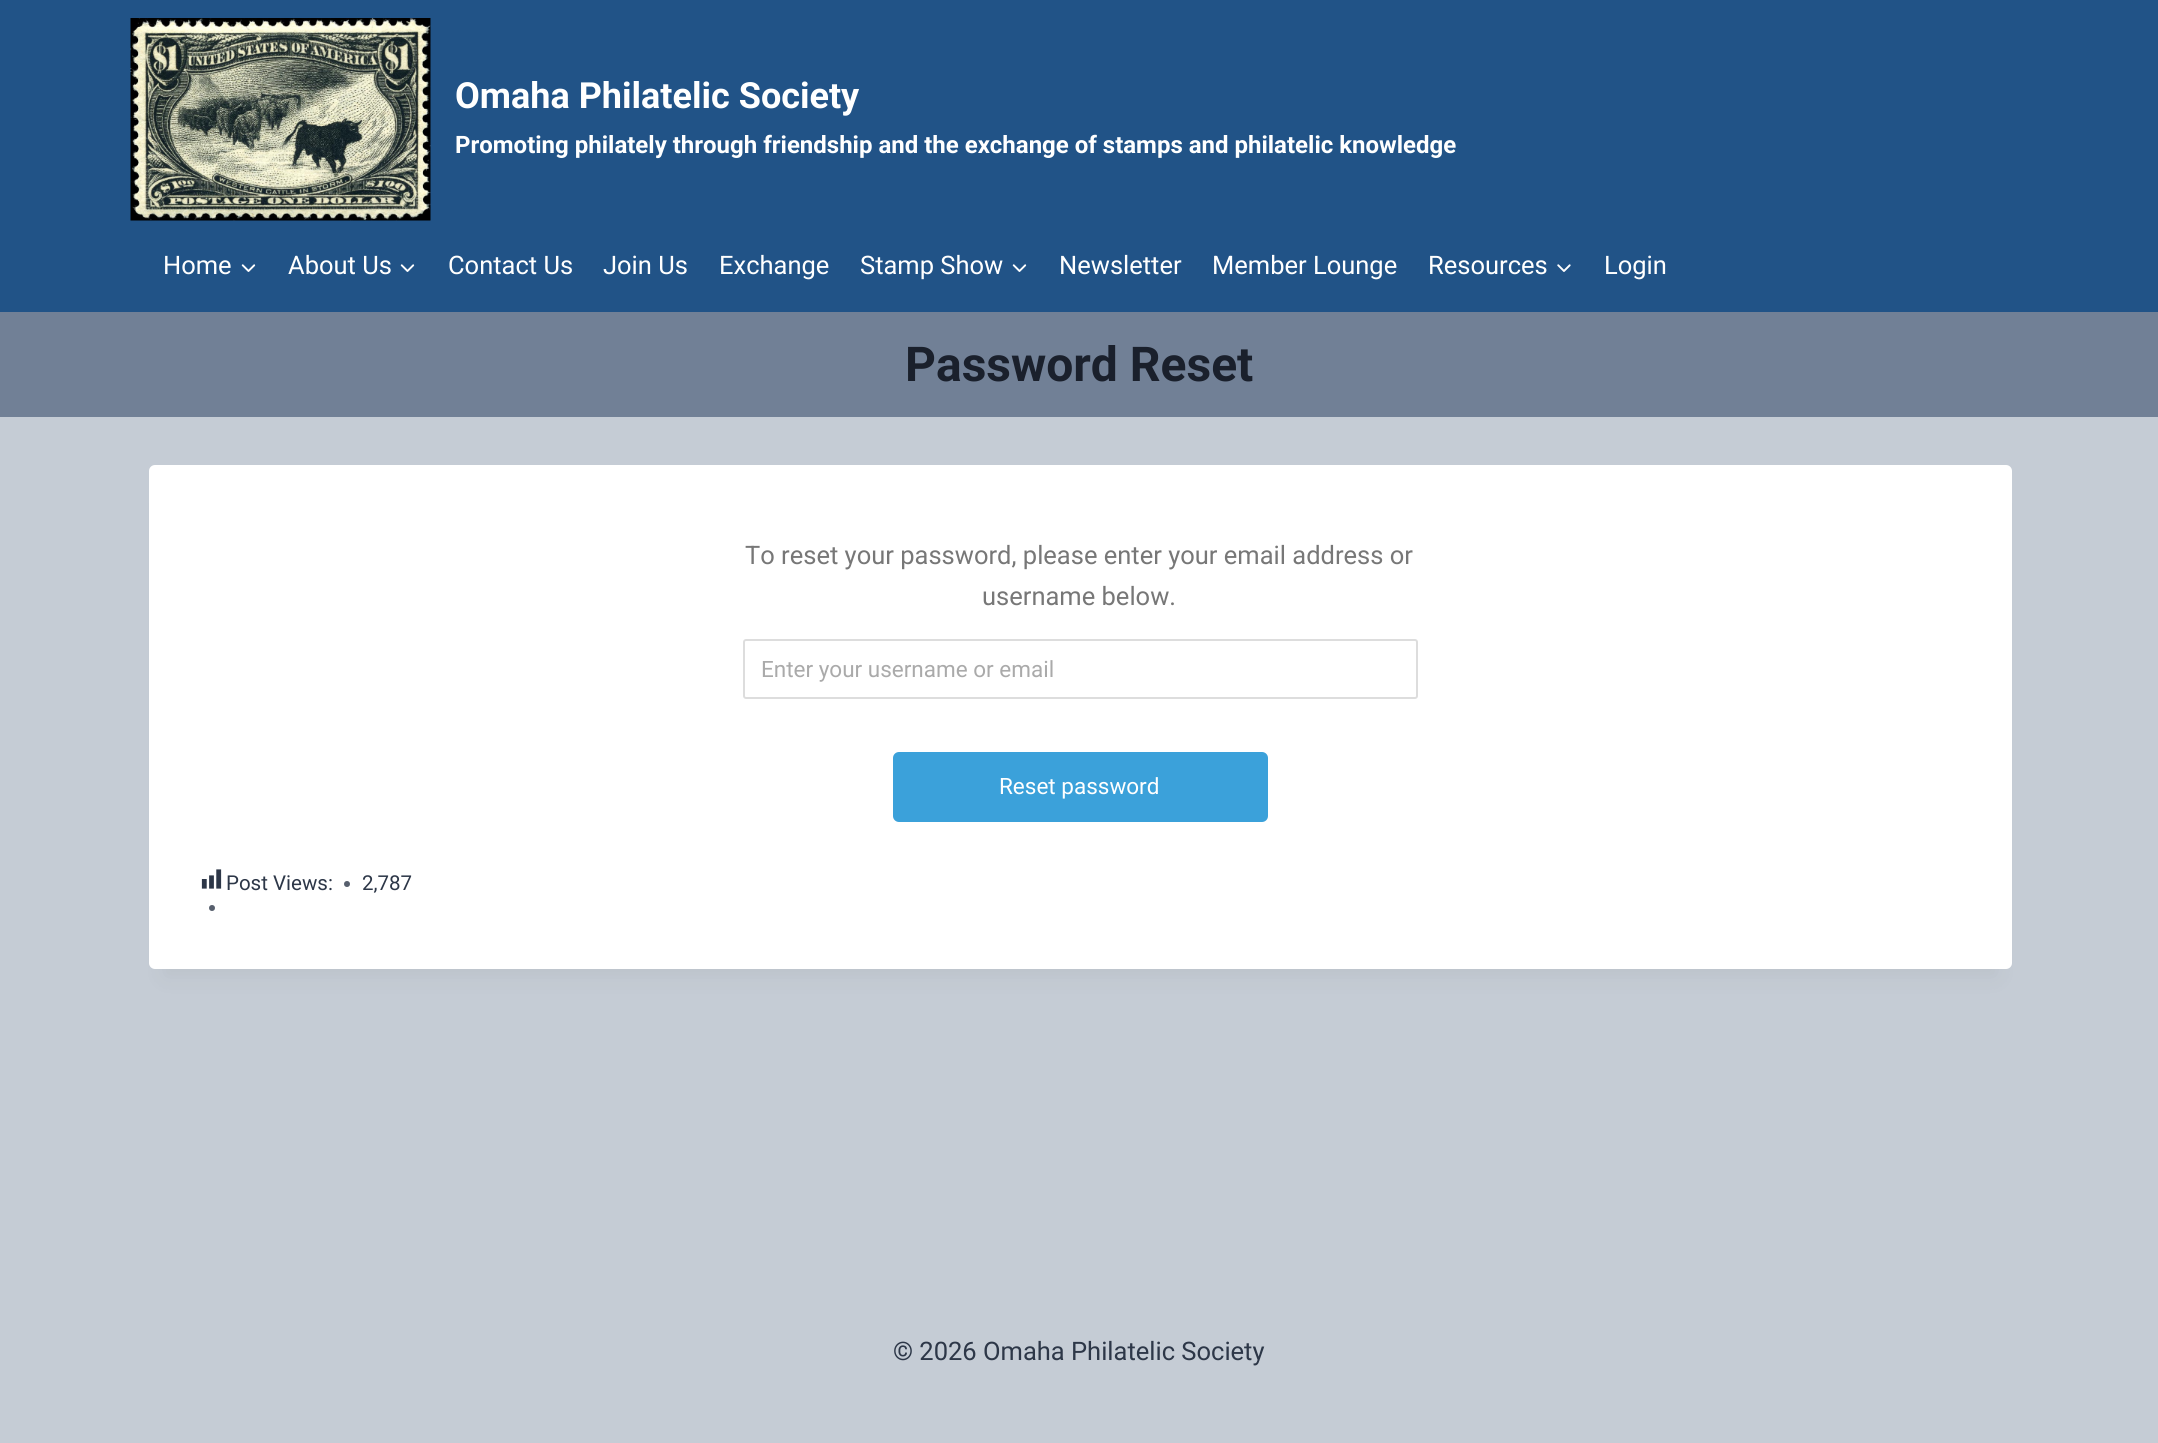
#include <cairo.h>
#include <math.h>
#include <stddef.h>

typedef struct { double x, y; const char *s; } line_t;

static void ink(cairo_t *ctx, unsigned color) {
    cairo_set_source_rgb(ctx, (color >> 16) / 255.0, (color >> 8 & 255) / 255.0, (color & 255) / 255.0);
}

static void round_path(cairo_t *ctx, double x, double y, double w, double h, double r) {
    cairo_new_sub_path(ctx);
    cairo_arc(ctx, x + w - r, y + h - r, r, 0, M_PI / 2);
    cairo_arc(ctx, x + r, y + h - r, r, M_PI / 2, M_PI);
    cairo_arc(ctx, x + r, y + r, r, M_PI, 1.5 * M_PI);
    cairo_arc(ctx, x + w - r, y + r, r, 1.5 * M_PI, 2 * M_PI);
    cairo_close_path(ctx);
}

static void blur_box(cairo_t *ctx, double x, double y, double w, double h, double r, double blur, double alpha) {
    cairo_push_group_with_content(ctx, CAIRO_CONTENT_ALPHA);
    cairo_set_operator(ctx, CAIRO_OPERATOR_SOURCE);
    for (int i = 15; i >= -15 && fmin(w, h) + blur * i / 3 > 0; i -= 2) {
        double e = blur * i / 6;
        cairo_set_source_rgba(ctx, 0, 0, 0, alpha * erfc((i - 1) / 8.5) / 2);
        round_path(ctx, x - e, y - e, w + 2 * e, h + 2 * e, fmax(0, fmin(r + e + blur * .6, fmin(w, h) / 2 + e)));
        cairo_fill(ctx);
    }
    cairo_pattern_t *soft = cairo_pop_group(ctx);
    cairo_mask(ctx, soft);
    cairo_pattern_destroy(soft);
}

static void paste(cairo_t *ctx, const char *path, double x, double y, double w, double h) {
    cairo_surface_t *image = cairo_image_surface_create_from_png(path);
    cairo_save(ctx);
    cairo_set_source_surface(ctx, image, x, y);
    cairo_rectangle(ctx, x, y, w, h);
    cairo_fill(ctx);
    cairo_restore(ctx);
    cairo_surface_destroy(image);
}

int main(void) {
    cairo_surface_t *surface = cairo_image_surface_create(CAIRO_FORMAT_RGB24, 2158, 1443);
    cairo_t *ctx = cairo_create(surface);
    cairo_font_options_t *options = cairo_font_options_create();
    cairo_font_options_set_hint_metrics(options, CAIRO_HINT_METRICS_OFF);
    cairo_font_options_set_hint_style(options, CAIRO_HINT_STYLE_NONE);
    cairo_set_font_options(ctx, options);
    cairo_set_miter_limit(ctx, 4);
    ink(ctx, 0xC5CCD5);
    cairo_paint(ctx);
    ink(ctx, 0x215387);
    cairo_rectangle(ctx, 0, 0, 2158, 312);
    cairo_fill(ctx);
    paste(ctx, "media/1.png", 130, 18, 301, 203);
    cairo_select_font_face(ctx, "Roboto", CAIRO_FONT_SLANT_NORMAL, CAIRO_FONT_WEIGHT_BOLD);
    cairo_set_font_size(ctx, 36);
    ink(ctx, 0xFFFFFF);
    cairo_move_to(ctx, 455, 108);
    cairo_show_text(ctx, "Omaha Philatelic Society");
    cairo_set_font_size(ctx, 24);
    cairo_move_to(ctx, 455, 153);
    cairo_show_text(ctx, "Promoting philately through friendship and the exchange of stamps and philatelic knowledge");
    cairo_select_font_face(ctx, "Roboto", CAIRO_FONT_SLANT_NORMAL, CAIRO_FONT_WEIGHT_NORMAL);
    cairo_set_font_size(ctx, 25.5);
    cairo_move_to(ctx, 163, 274);
    cairo_show_text(ctx, "Home");
    paste(ctx, "media/2.png", 241, 264, 15, 8);
    cairo_move_to(ctx, 288, 274);
    cairo_show_text(ctx, "About Us");
    paste(ctx, "media/2.png", 400, 264, 15, 8);
    {
        static const line_t items[] = {
            {448, 274, "Contact Us"},
            {603, 274, "Join Us"},
            {719, 274, "Exchange"},
            {860, 274, "Stamp Show"},
        };
        for (size_t i = 0; i < sizeof items / sizeof *items; i++) {
            cairo_move_to(ctx, items[i].x, items[i].y);
            cairo_show_text(ctx, items[i].s);
        }
    }
    paste(ctx, "media/2.png", 1012, 264, 15, 8);
    {
        static const line_t items[] = {
            {1059, 274, "Newsletter"},
            {1212, 274, "Member Lounge"},
            {1428, 274, "Resources"},
        };
        for (size_t i = 0; i < sizeof items / sizeof *items; i++) {
            cairo_move_to(ctx, items[i].x, items[i].y);
            cairo_show_text(ctx, items[i].s);
        }
    }
    paste(ctx, "media/3.png", 1557, 264, 14, 8);
    cairo_move_to(ctx, 1604, 274);
    cairo_show_text(ctx, "Login");
    ink(ctx, 0x718096);
    cairo_rectangle(ctx, 0, 312, 2158, 105);
    cairo_fill(ctx);
    cairo_select_font_face(ctx, "Roboto", CAIRO_FONT_SLANT_NORMAL, CAIRO_FONT_WEIGHT_BOLD);
    cairo_set_font_size(ctx, 48);
    ink(ctx, 0x1A202C);
    cairo_move_to(ctx, 905, 381);
    cairo_show_text(ctx, "Password Reset");
    ink(ctx, 0x000000);
    blur_box(ctx, 164, 503, 1833, 474, 0, 11, 0.05);
    ink(ctx, 0xFFFFFF);
    round_path(ctx, 149, 465, 1863, 504, 6);
    cairo_fill(ctx);
    cairo_select_font_face(ctx, "Roboto", CAIRO_FONT_SLANT_NORMAL, CAIRO_FONT_WEIGHT_NORMAL);
    cairo_set_font_size(ctx, 25.5);
    ink(ctx, 0x777777);
    cairo_move_to(ctx, 745, 564);
    cairo_show_text(ctx, "To reset your password, please enter your email address or");
    cairo_move_to(ctx, 982, 605);
    cairo_show_text(ctx, "username below.");
    round_path(ctx, 744, 640, 673, 58, 2);
    ink(ctx, 0xDDDDDD);
    cairo_stroke(ctx);
    cairo_set_font_size(ctx, 22.5);
    ink(ctx, 0xAAAAAA);
    cairo_move_to(ctx, 761, 677);
    cairo_show_text(ctx, "Enter your username or email");
    ink(ctx, 0x3BA1DA);
    round_path(ctx, 893, 752, 375, 70, 6);
    cairo_fill(ctx);
    ink(ctx, 0xFFFFFF);
    cairo_move_to(ctx, 999, 794);
    cairo_show_text(ctx, "Reset password");
    paste(ctx, "media/4.png", 201, 869, 21, 20);
    ink(ctx, 0x575F6D);
    cairo_arc(ctx, 212, 908, 3, 0, 2 * M_PI);
    cairo_fill(ctx);
    cairo_set_font_size(ctx, 20.5);
    ink(ctx, 0x2D3748);
    cairo_move_to(ctx, 226, 890);
    cairo_show_text(ctx, "Post Views:");
    ink(ctx, 0x575F6D);
    cairo_new_path(ctx);
    cairo_arc(ctx, 347, 884, 3, 0, 2 * M_PI);
    cairo_fill(ctx);
    ink(ctx, 0x2D3748);
    cairo_move_to(ctx, 362, 890);
    cairo_show_text(ctx, "2,787");
    cairo_set_font_size(ctx, 25.5);
    cairo_move_to(ctx, 893, 1360);
    cairo_show_text(ctx, "© 2026 Omaha Philatelic Society");
    cairo_surface_write_to_png(surface, "image.png");
    cairo_font_options_destroy(options);
    cairo_destroy(ctx);
    cairo_surface_destroy(surface);
    return 0;
}
